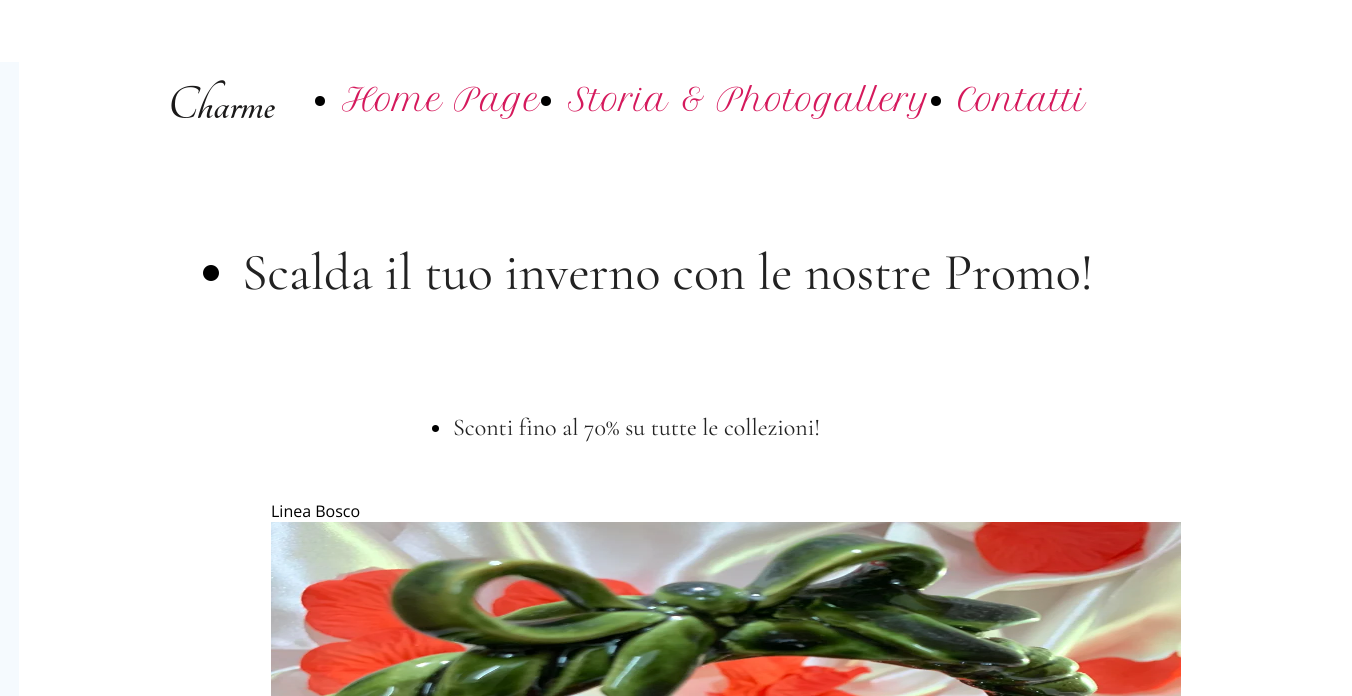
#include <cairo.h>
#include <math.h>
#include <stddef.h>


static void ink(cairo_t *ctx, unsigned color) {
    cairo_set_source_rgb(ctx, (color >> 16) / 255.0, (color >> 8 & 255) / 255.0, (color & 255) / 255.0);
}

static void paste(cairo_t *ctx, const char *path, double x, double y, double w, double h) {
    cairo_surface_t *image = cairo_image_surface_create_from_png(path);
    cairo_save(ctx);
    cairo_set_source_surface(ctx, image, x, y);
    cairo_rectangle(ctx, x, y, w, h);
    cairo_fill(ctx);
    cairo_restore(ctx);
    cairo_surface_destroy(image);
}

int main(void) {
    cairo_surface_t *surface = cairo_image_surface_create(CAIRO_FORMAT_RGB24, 1352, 696);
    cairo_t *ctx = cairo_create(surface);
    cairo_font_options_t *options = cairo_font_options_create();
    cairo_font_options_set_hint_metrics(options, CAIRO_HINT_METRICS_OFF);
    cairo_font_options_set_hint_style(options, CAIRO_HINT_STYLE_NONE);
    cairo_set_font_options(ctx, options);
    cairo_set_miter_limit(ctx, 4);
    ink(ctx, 0xFFFFFF);
    cairo_paint(ctx);
    ink(ctx, 0xF5FAFE);
    cairo_rectangle(ctx, 0, 62, 19, 634);
    cairo_fill(ctx);
    cairo_select_font_face(ctx, "Tangerine", CAIRO_FONT_SLANT_NORMAL, CAIRO_FONT_WEIGHT_BOLD);
    cairo_set_font_size(ctx, 50);
    ink(ctx, 0x1A1919);
    cairo_move_to(ctx, 168, 118);
    cairo_show_text(ctx, "Charme");
    ink(ctx, 0x000000);
    cairo_new_path(ctx);
    cairo_arc(ctx, 320, 101, 5, 0, 2 * M_PI);
    cairo_fill(ctx);
    cairo_select_font_face(ctx, "Petit Formal Script", CAIRO_FONT_SLANT_NORMAL, CAIRO_FONT_WEIGHT_NORMAL);
    cairo_set_font_size(ctx, 31);
    ink(ctx, 0xD5195C);
    cairo_move_to(ctx, 342, 111);
    cairo_show_text(ctx, "Home Page");
    ink(ctx, 0x000000);
    cairo_new_path(ctx);
    cairo_arc(ctx, 546, 101, 5, 0, 2 * M_PI);
    cairo_fill(ctx);
    ink(ctx, 0xD5195C);
    cairo_move_to(ctx, 568, 111);
    cairo_show_text(ctx, "Storia & Photogallery");
    ink(ctx, 0x000000);
    cairo_new_path(ctx);
    cairo_arc(ctx, 936, 101, 5, 0, 2 * M_PI);
    cairo_fill(ctx);
    ink(ctx, 0xD5195C);
    cairo_move_to(ctx, 958, 111);
    cairo_show_text(ctx, "Contatti");
    ink(ctx, 0x000000);
    cairo_new_path(ctx);
    cairo_arc(ctx, 211, 273, 8, 0, 2 * M_PI);
    cairo_fill(ctx);
    cairo_select_font_face(ctx, "Cormorant Garamond", CAIRO_FONT_SLANT_NORMAL, CAIRO_FONT_WEIGHT_NORMAL);
    cairo_set_font_size(ctx, 52);
    ink(ctx, 0x222222);
    cairo_move_to(ctx, 242, 289);
    cairo_show_text(ctx, "Scalda il tuo inverno con le nostre Promo!");
    ink(ctx, 0x000000);
    cairo_new_path(ctx);
    cairo_arc(ctx, 435.5, 428.5, 3.5, 0, 2 * M_PI);
    cairo_fill(ctx);
    cairo_set_font_size(ctx, 24);
    ink(ctx, 0x222222);
    cairo_move_to(ctx, 453, 435);
    cairo_show_text(ctx, "Sconti fino al 70% su tutte le collezioni!");
    cairo_select_font_face(ctx, "Open Sans", CAIRO_FONT_SLANT_NORMAL, CAIRO_FONT_WEIGHT_NORMAL);
    cairo_set_font_size(ctx, 16);
    ink(ctx, 0x000000);
    cairo_move_to(ctx, 271, 517);
    cairo_show_text(ctx, "Linea Bosco");
    paste(ctx, "media/1.png", 271, 522, 910, 174);
    cairo_surface_write_to_png(surface, "image.png");
    cairo_font_options_destroy(options);
    cairo_destroy(ctx);
    cairo_surface_destroy(surface);
    return 0;
}
